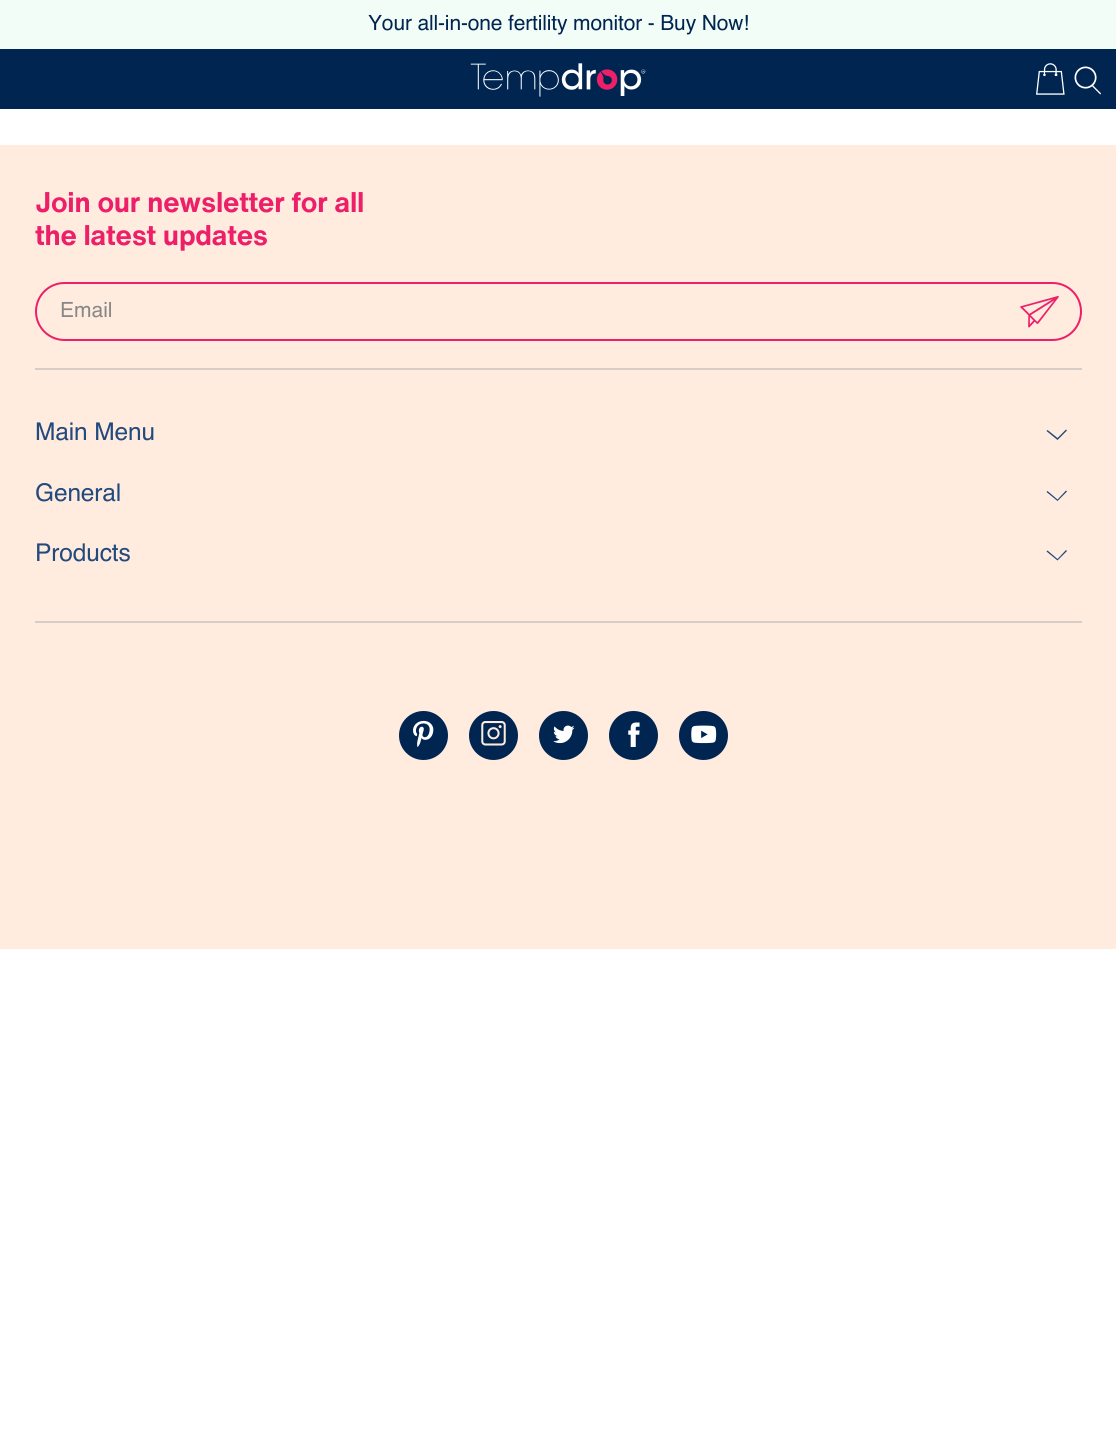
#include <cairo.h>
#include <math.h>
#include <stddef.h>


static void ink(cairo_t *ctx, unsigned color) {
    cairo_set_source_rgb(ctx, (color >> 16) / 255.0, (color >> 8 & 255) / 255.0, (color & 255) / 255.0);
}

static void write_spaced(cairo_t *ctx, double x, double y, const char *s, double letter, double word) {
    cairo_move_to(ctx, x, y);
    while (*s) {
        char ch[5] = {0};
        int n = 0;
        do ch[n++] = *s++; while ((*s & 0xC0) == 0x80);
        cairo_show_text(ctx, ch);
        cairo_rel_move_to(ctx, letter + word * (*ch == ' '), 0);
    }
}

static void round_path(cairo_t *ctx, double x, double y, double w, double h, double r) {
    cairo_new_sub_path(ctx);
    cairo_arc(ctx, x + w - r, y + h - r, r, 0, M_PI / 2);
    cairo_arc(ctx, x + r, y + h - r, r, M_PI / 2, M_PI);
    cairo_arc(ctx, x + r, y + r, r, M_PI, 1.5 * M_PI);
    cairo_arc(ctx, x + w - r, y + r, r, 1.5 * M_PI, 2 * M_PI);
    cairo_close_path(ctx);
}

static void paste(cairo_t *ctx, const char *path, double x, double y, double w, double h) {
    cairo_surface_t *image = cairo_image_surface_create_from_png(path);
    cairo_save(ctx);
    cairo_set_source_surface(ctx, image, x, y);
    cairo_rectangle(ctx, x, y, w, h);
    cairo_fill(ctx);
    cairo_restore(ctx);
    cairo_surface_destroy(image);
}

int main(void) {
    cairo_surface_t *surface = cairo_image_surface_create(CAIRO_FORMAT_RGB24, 1116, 1443);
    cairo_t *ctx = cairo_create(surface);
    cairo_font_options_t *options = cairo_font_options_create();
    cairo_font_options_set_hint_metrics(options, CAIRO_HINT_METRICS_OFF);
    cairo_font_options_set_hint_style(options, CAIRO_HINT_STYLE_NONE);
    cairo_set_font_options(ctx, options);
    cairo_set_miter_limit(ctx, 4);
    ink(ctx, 0xFFFFFF);
    cairo_paint(ctx);
    ink(ctx, 0xF3FDF7);
    cairo_rectangle(ctx, 0, 0, 1116, 49);
    cairo_fill(ctx);
    cairo_select_font_face(ctx, "Helvetica", CAIRO_FONT_SLANT_NORMAL, CAIRO_FONT_WEIGHT_NORMAL);
    cairo_set_font_size(ctx, 21);
    ink(ctx, 0x002551);
    write_spaced(ctx, 368, 30, "Your all-in-one fertility monitor - Buy Now!", -0.15, 0);
    cairo_rectangle(ctx, 0, 49, 1116, 60);
    cairo_fill(ctx);
    paste(ctx, "media/1.png", 470, 63, 176, 34);
    paste(ctx, "media/2.png", 596, 69, 22, 21);
    paste(ctx, "media/3.png", 1036, 63, 29, 32);
    paste(ctx, "media/4.png", 1074, 66, 27, 29);
    ink(ctx, 0xFFECDF);
    cairo_rectangle(ctx, 0, 145, 1116, 804);
    cairo_fill(ctx);
    ink(ctx, 0xD7CDC8);
    cairo_rectangle(ctx, 35, 368, 1047, 2);
    cairo_fill(ctx);
    cairo_select_font_face(ctx, "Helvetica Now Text", CAIRO_FONT_SLANT_NORMAL, CAIRO_FONT_WEIGHT_BOLD);
    cairo_set_font_size(ctx, 28);
    ink(ctx, 0xED1F68);
    write_spaced(ctx, 35, 212, "Join our newsletter for all", -0.15, 0);
    write_spaced(ctx, 35, 245, "the latest updates", -0.15, 0);
    round_path(ctx, 36, 283, 1045, 57, 28.5);
    cairo_stroke(ctx);
    cairo_select_font_face(ctx, "Helvetica", CAIRO_FONT_SLANT_NORMAL, CAIRO_FONT_WEIGHT_NORMAL);
    cairo_set_font_size(ctx, 21);
    ink(ctx, 0x888888);
    cairo_move_to(ctx, 60, 317);
    cairo_show_text(ctx, "Email");
    paste(ctx, "media/5.png", 1020, 296, 39, 32);
    ink(ctx, 0xD7CDC8);
    cairo_rectangle(ctx, 35, 621, 1047, 2);
    cairo_fill(ctx);
    cairo_set_font_size(ctx, 24.5);
    ink(ctx, 0x224A7D);
    write_spaced(ctx, 35, 440, "Main Menu", -0.15, 0);
    cairo_new_path(ctx);
    cairo_move_to(ctx, 1066, 429.5);
    cairo_line_to(ctx, 1057.5, 438);
    cairo_line_to(ctx, 1047.5, 430);
    cairo_line_to(ctx, 1046.5, 431);
    cairo_line_to(ctx, 1057.5, 440);
    cairo_line_to(ctx, 1067, 430.5);
    cairo_close_path(ctx);
    cairo_fill(ctx);
    write_spaced(ctx, 35, 501, "General", -0.15, 0);
    cairo_new_path(ctx);
    cairo_move_to(ctx, 1066, 490.5);
    cairo_line_to(ctx, 1057.5, 499.5);
    cairo_line_to(ctx, 1047.5, 491);
    cairo_line_to(ctx, 1046.5, 492);
    cairo_line_to(ctx, 1057.5, 501);
    cairo_line_to(ctx, 1067, 491.5);
    cairo_close_path(ctx);
    cairo_fill(ctx);
    write_spaced(ctx, 35, 561, "Products", -0.15, 0);
    cairo_new_path(ctx);
    cairo_move_to(ctx, 1066, 550);
    cairo_line_to(ctx, 1057.5, 559);
    cairo_line_to(ctx, 1047.5, 550.5);
    cairo_line_to(ctx, 1046.5, 551.5);
    cairo_line_to(ctx, 1057.5, 560.5);
    cairo_line_to(ctx, 1067, 551);
    cairo_close_path(ctx);
    cairo_fill(ctx);
    ink(ctx, 0x002551);
    cairo_arc(ctx, 423.5, 735.5, 24.5, 0, 2 * M_PI);
    cairo_fill(ctx);
    paste(ctx, "media/6.png", 413, 720, 21, 28);
    cairo_arc(ctx, 493.5, 735.5, 24.5, 0, 2 * M_PI);
    cairo_fill(ctx);
    paste(ctx, "media/7.png", 481, 721, 25, 25);
    cairo_arc(ctx, 563.5, 735.5, 24.5, 0, 2 * M_PI);
    cairo_fill(ctx);
    paste(ctx, "media/8.png", 553, 725, 22, 19);
    cairo_arc(ctx, 633.5, 735.5, 24.5, 0, 2 * M_PI);
    cairo_fill(ctx);
    paste(ctx, "media/9.png", 628, 722, 12, 25);
    cairo_arc(ctx, 703.5, 735.5, 24.5, 0, 2 * M_PI);
    cairo_fill(ctx);
    paste(ctx, "media/10.png", 691, 725, 26, 19);
    cairo_surface_write_to_png(surface, "image.png");
    cairo_font_options_destroy(options);
    cairo_destroy(ctx);
    cairo_surface_destroy(surface);
    return 0;
}
